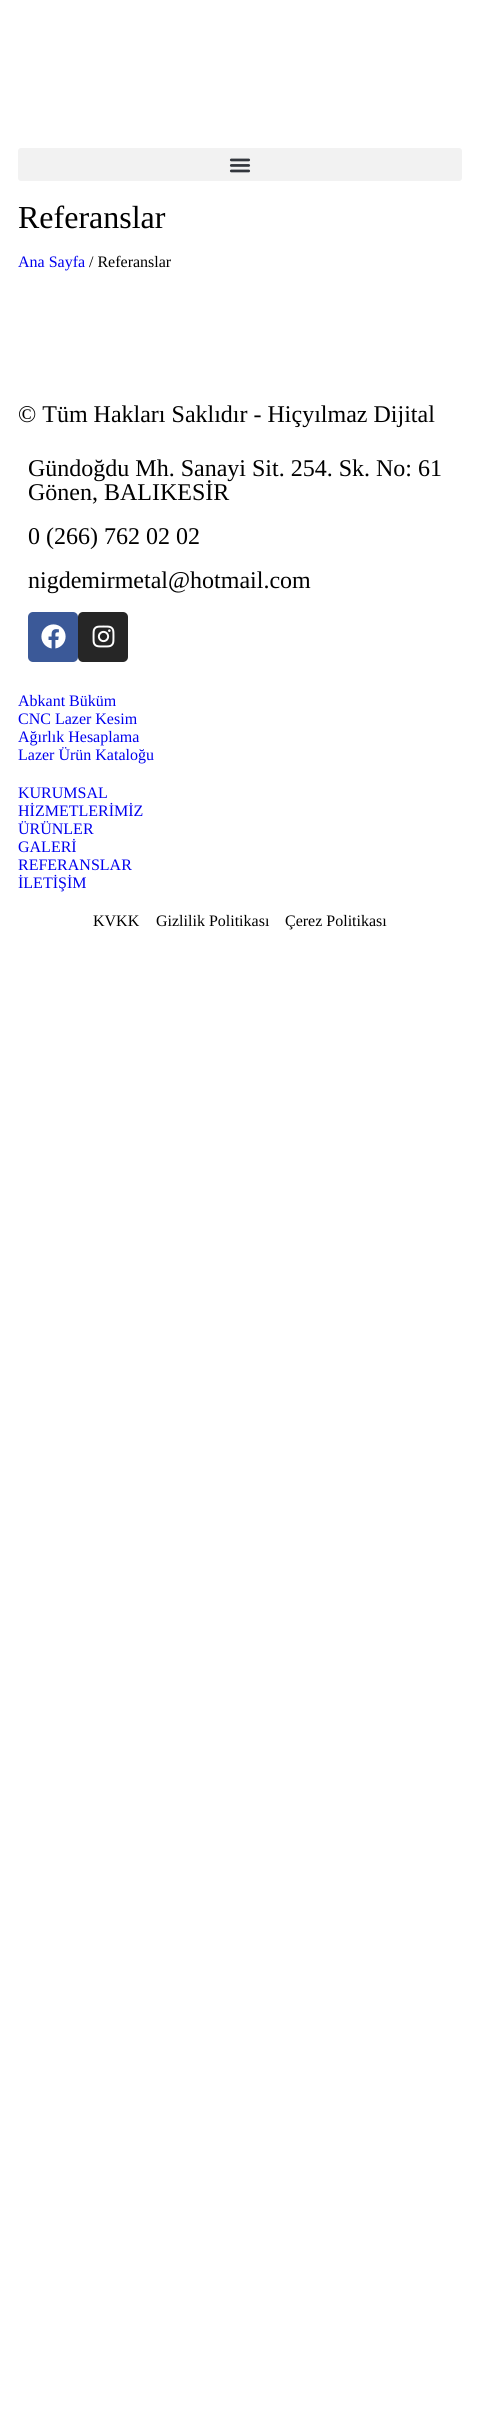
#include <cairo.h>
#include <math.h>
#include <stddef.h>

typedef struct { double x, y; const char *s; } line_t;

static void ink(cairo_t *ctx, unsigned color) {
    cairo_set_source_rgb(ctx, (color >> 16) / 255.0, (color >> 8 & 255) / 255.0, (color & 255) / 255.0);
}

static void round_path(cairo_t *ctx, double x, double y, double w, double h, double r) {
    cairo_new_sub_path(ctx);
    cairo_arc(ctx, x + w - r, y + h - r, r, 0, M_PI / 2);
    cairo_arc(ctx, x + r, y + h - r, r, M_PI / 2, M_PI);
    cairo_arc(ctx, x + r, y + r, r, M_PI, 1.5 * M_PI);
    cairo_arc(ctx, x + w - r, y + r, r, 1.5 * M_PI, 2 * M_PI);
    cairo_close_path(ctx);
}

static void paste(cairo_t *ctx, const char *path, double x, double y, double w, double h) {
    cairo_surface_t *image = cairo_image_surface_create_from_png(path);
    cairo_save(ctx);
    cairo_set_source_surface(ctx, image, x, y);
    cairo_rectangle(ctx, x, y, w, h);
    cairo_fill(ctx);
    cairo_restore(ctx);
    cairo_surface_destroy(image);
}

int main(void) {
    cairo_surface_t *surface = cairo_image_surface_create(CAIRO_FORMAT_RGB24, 480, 2415);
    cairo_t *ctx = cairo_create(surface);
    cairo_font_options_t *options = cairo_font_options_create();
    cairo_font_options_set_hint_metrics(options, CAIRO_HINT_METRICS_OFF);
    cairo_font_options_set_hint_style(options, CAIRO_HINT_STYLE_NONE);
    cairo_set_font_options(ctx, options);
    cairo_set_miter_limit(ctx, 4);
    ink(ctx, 0xFFFFFF);
    cairo_paint(ctx);
    ink(ctx, 0xF2F2F2);
    round_path(ctx, 18, 148, 444, 33, 3);
    cairo_fill(ctx);
    paste(ctx, "media/1.png", 229, 158, 22, 15);
    cairo_select_font_face(ctx, "Liberation Serif", CAIRO_FONT_SLANT_NORMAL, CAIRO_FONT_WEIGHT_NORMAL);
    cairo_set_font_size(ctx, 32);
    ink(ctx, 0x000000);
    cairo_move_to(ctx, 18, 228);
    cairo_show_text(ctx, "Referanslar");
    cairo_set_font_size(ctx, 16);
    ink(ctx, 0x0000EE);
    cairo_move_to(ctx, 18, 267);
    cairo_show_text(ctx, "Ana Sayfa");
    ink(ctx, 0x000000);
    cairo_move_to(ctx, 89, 267);
    cairo_show_text(ctx, "/ Referanslar");
    cairo_set_font_size(ctx, 24);
    {
        static const line_t items[] = {
            {18, 422, "© Tüm Hakları Saklıdır - Hiçyılmaz Dijital"},
            {28, 476, "Gündoğdu Mh. Sanayi Sit. 254. Sk. No: 61"},
            {28, 500, "Gönen, BALIKESİR"},
            {28, 544, "0 (266) 762 02 02"},
            {28, 588, "nigdemirmetal@hotmail.com"},
        };
        for (size_t i = 0; i < sizeof items / sizeof *items; i++) {
            cairo_move_to(ctx, items[i].x, items[i].y);
            cairo_show_text(ctx, items[i].s);
        }
    }
    ink(ctx, 0x3B5998);
    round_path(ctx, 28, 612, 50, 50, 5);
    cairo_fill(ctx);
    paste(ctx, "media/2.png", 41, 624, 25, 25);
    ink(ctx, 0x262626);
    round_path(ctx, 78, 612, 50, 50, 5);
    cairo_fill(ctx);
    paste(ctx, "media/3.png", 92, 625, 23, 23);
    cairo_set_font_size(ctx, 16);
    ink(ctx, 0x0000EE);
    {
        static const line_t items[] = {
            {18, 706, "Abkant Büküm"},
            {18, 724, "CNC Lazer Kesim"},
            {18, 742, "Ağırlık Hesaplama"},
            {18, 760, "Lazer Ürün Kataloğu"},
            {18, 798, "KURUMSAL"},
            {18, 816, "HİZMETLERİMİZ"},
            {18, 834, "ÜRÜNLER"},
            {18, 852, "GALERİ"},
            {18, 870, "REFERANSLAR"},
            {18, 888, "İLETİŞİM"},
        };
        for (size_t i = 0; i < sizeof items / sizeof *items; i++) {
            cairo_move_to(ctx, items[i].x, items[i].y);
            cairo_show_text(ctx, items[i].s);
        }
    }
    ink(ctx, 0x000000);
    {
        static const line_t items[] = {
            {93, 926, "KVKK"},
            {156, 926, "Gizlilik Politikası"},
            {285, 926, "Çerez Politikası"},
        };
        for (size_t i = 0; i < sizeof items / sizeof *items; i++) {
            cairo_move_to(ctx, items[i].x, items[i].y);
            cairo_show_text(ctx, items[i].s);
        }
    }
    cairo_surface_write_to_png(surface, "image.png");
    cairo_font_options_destroy(options);
    cairo_destroy(ctx);
    cairo_surface_destroy(surface);
    return 0;
}
